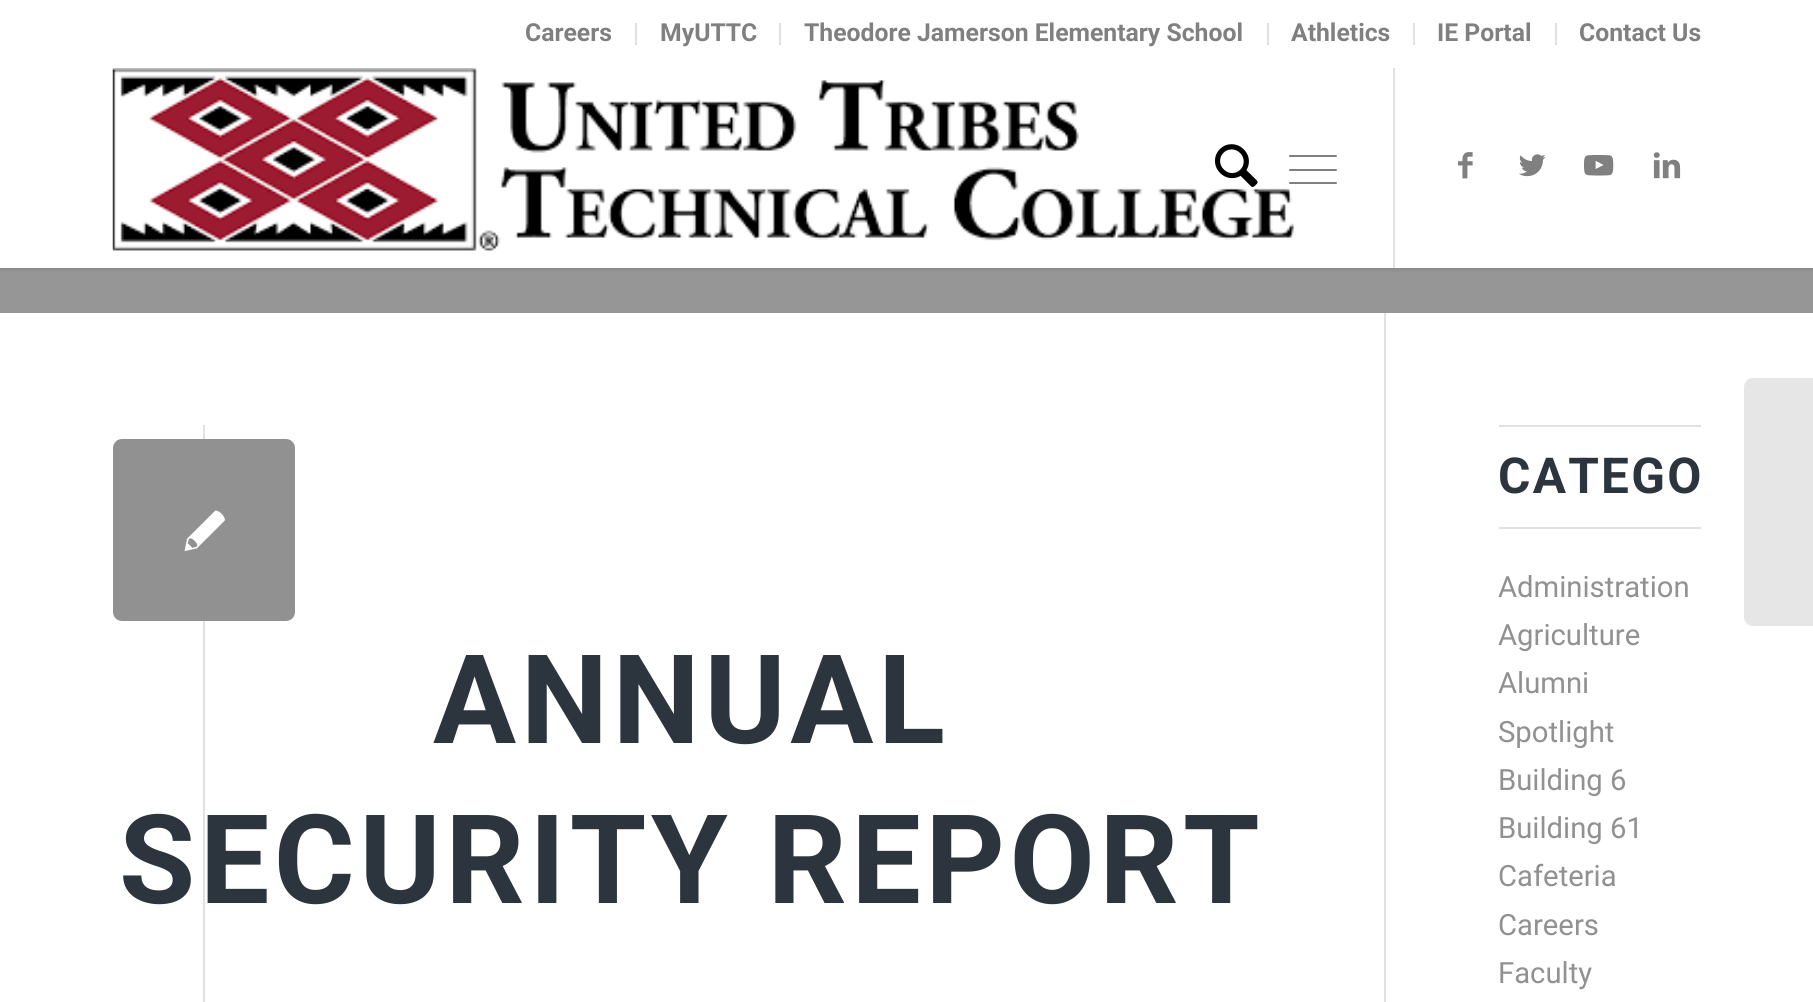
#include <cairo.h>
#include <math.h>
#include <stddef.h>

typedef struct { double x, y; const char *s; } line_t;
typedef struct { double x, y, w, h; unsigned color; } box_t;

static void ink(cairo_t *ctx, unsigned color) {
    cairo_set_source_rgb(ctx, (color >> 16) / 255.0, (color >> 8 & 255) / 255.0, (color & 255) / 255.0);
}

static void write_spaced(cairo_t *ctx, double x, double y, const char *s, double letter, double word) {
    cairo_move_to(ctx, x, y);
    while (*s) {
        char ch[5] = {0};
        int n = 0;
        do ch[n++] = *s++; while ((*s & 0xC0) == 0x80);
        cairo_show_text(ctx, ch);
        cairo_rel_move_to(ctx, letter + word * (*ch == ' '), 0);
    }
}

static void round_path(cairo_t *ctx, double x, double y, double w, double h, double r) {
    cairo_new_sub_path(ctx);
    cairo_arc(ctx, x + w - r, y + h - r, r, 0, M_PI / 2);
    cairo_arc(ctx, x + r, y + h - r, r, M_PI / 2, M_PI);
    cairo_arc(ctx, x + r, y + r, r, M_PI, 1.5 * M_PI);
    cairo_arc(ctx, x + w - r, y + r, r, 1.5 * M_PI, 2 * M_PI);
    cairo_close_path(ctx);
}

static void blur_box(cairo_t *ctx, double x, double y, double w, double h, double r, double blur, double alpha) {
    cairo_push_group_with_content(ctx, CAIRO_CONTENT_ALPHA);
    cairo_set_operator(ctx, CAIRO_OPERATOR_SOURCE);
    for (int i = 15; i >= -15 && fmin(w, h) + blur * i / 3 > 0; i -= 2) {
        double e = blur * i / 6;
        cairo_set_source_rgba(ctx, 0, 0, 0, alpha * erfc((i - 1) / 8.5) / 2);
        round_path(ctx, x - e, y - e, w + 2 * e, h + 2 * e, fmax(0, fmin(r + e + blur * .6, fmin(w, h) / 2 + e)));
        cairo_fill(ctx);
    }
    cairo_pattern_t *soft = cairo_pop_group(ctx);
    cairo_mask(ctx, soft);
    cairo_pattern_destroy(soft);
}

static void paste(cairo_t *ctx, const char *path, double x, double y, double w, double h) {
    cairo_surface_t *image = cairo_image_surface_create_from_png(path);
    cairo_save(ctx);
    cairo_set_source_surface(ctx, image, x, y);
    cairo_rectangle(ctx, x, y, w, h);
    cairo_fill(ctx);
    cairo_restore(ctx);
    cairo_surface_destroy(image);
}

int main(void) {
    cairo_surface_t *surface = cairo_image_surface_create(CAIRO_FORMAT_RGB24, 1813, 1002);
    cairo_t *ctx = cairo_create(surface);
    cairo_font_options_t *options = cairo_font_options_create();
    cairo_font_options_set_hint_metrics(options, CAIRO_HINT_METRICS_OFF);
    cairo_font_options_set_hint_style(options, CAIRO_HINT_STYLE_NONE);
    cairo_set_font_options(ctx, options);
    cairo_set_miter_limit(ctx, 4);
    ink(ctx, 0x969696);
    cairo_paint(ctx);
    ink(ctx, 0x000000);
    blur_box(ctx, -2, -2, 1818, 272, 0, 2, 0.1);
    {
        static const box_t items[] = {
            {0, 68, 1813, 200, 0xFFFFFF},
            {1393, 65, 2, 203, 0xE1E1E1},
            {0, 0, 1813, 68, 0xFFFFFF},
            {635, 23, 2, 22, 0xE1E1E1},
        };
        for (size_t i = 0; i < sizeof items / sizeof *items; i++) {
            ink(ctx, items[i].color);
            cairo_rectangle(ctx, items[i].x, items[i].y, items[i].w, items[i].h);
            cairo_fill(ctx);
        }
    }
    cairo_select_font_face(ctx, "Roboto", CAIRO_FONT_SLANT_NORMAL, CAIRO_FONT_WEIGHT_BOLD);
    cairo_set_font_size(ctx, 24.75);
    ink(ctx, 0x808080);
    cairo_move_to(ctx, 525, 41);
    cairo_show_text(ctx, "Careers");
    ink(ctx, 0xE1E1E1);
    cairo_rectangle(ctx, 779, 23, 2, 22);
    cairo_fill(ctx);
    ink(ctx, 0x808080);
    cairo_move_to(ctx, 660, 41);
    cairo_show_text(ctx, "MyUTTC");
    ink(ctx, 0xE1E1E1);
    cairo_rectangle(ctx, 1267, 23, 2, 22);
    cairo_fill(ctx);
    ink(ctx, 0x808080);
    cairo_move_to(ctx, 804, 41);
    cairo_show_text(ctx, "Theodore Jamerson Elementary School");
    ink(ctx, 0xE1E1E1);
    cairo_rectangle(ctx, 1413, 23, 2, 22);
    cairo_fill(ctx);
    ink(ctx, 0x808080);
    cairo_move_to(ctx, 1291, 41);
    cairo_show_text(ctx, "Athletics");
    ink(ctx, 0xE1E1E1);
    cairo_rectangle(ctx, 1555, 23, 2, 22);
    cairo_fill(ctx);
    ink(ctx, 0x808080);
    cairo_move_to(ctx, 1437, 41);
    cairo_show_text(ctx, "IE Portal");
    cairo_move_to(ctx, 1579, 41);
    cairo_show_text(ctx, "Contact Us");
    paste(ctx, "media/1.png", 112, 68, 1182, 183);
    paste(ctx, "media/2.png", 1215, 144, 43, 43);
    round_path(ctx, 1289, 169, 48, 2, 1);
    cairo_fill(ctx);
    round_path(ctx, 1289, 155, 48, 2, 1);
    cairo_fill(ctx);
    round_path(ctx, 1289, 182, 48, 2, 1);
    cairo_fill(ctx);
    paste(ctx, "media/3.png", 1458, 152, 15, 27);
    paste(ctx, "media/4.png", 1519, 154, 27, 23);
    paste(ctx, "media/5.png", 1584, 155, 30, 21);
    paste(ctx, "media/6.png", 1653, 152, 28, 27);
    ink(ctx, 0xFFFFFF);
    cairo_rectangle(ctx, 0, 313, 1813, 689);
    cairo_fill(ctx);
    ink(ctx, 0xE1E1E1);
    cairo_rectangle(ctx, 1384, 313, 2, 689);
    cairo_fill(ctx);
    cairo_set_font_size(ctx, 123.75);
    ink(ctx, 0x2C353D);
    write_spaced(ctx, 119, 903, "SECURITY REPORT", 4.5, 0);
    ink(ctx, 0xE1E1E1);
    cairo_rectangle(ctx, 203, 425, 2, 577);
    cairo_fill(ctx);
    ink(ctx, 0x919191);
    round_path(ctx, 113, 439, 182, 182, 9);
    cairo_fill(ctx);
    paste(ctx, "media/7.png", 184, 510, 41, 41);
    ink(ctx, 0x2C353D);
    write_spaced(ctx, 433, 743, "ANNUAL", 4.5, 0);
    ink(ctx, 0xE1E1E1);
    cairo_rectangle(ctx, 1499, 425, 202, 2);
    cairo_fill(ctx);
    cairo_rectangle(ctx, 1499, 527, 202, 2);
    cairo_fill(ctx);
    cairo_set_font_size(ctx, 49.5);
    ink(ctx, 0x2C353D);
    write_spaced(ctx, 1498, 493, "CATEGO", 2.25, 0);
    cairo_select_font_face(ctx, "Roboto", CAIRO_FONT_SLANT_NORMAL, CAIRO_FONT_WEIGHT_NORMAL);
    cairo_set_font_size(ctx, 29.25);
    ink(ctx, 0x919191);
    {
        static const line_t items[] = {
            {1498, 597, "Administration"},
            {1498, 645, "Agriculture"},
            {1498, 693, "Alumni"},
            {1498, 742, "Spotlight"},
            {1498, 790, "Building 6"},
            {1498, 838, "Building 61"},
            {1498, 886, "Cafeteria"},
            {1498, 935, "Careers"},
            {1498, 983, "Faculty"},
        };
        for (size_t i = 0; i < sizeof items / sizeof *items; i++) {
            cairo_move_to(ctx, items[i].x, items[i].y);
            cairo_show_text(ctx, items[i].s);
        }
    }
    ink(ctx, 0xE6E6E6);
    cairo_new_path(ctx);
    cairo_move_to(ctx, 1753, 378);
    cairo_line_to(ctx, 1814, 378);
    cairo_line_to(ctx, 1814, 626);
    cairo_line_to(ctx, 1753, 626);
    cairo_curve_to(ctx, 1748, 626, 1744, 622, 1744, 617);
    cairo_line_to(ctx, 1744, 387);
    cairo_curve_to(ctx, 1744, 382, 1748, 378, 1753, 378);
    cairo_close_path(ctx);
    cairo_fill(ctx);
    cairo_surface_write_to_png(surface, "image.png");
    cairo_font_options_destroy(options);
    cairo_destroy(ctx);
    cairo_surface_destroy(surface);
    return 0;
}
